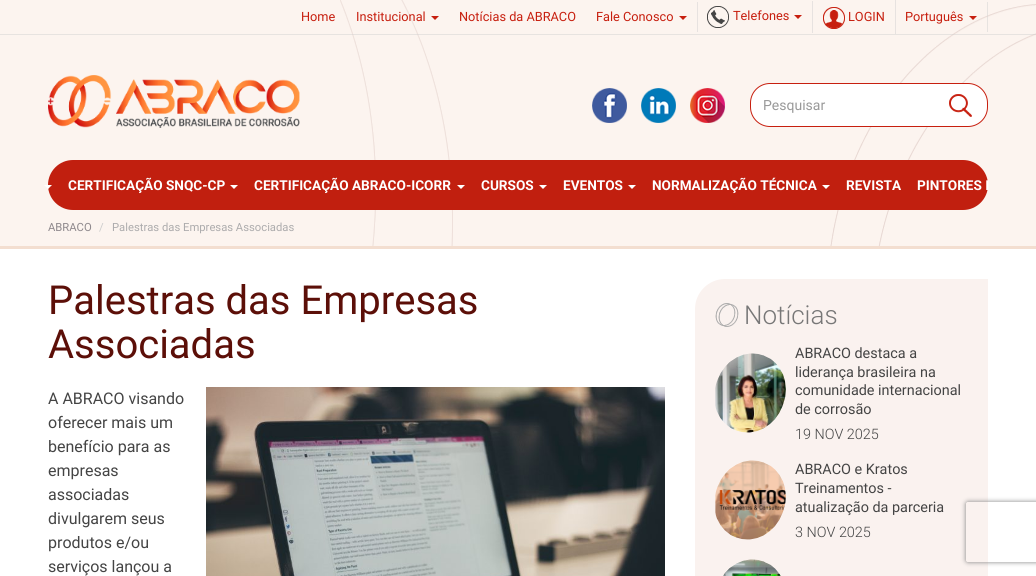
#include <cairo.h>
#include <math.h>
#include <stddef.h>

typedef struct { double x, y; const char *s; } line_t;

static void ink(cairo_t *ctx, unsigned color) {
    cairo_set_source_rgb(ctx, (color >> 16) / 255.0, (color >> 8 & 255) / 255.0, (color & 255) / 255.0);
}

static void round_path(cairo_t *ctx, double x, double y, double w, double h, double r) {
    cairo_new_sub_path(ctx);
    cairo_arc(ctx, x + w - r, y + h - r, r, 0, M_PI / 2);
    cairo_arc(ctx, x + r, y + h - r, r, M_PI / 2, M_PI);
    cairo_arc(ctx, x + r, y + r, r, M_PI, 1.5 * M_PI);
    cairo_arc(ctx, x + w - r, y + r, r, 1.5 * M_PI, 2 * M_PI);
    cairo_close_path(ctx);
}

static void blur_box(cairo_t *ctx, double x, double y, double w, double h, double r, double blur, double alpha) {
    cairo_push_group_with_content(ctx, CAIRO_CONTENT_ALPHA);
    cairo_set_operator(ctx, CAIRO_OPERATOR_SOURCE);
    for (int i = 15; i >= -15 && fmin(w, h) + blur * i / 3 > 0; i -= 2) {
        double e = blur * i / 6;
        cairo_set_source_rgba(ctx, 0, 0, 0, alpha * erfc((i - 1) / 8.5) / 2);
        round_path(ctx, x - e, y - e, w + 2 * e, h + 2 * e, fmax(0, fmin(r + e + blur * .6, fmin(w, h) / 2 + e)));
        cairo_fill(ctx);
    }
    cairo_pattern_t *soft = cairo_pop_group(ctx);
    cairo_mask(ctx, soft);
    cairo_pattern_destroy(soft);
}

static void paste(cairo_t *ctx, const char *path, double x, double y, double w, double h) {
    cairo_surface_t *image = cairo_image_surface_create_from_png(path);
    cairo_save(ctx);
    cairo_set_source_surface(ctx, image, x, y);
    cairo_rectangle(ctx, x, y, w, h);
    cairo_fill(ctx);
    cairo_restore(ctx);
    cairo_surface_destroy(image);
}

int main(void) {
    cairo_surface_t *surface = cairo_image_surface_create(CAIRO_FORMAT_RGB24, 1036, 576);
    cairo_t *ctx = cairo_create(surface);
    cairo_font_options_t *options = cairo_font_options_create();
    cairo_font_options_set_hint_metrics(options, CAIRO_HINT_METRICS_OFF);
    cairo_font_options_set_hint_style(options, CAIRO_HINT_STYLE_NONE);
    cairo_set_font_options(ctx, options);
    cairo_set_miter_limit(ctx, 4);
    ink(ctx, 0xFFFFFF);
    cairo_paint(ctx);
    ink(ctx, 0xFCF4EF);
    cairo_rectangle(ctx, 0, 0, 1036, 246);
    cairo_fill(ctx);
    paste(ctx, "media/1.png", 340, 0, 696, 246);
    ink(ctx, 0xF3DED0);
    cairo_rectangle(ctx, 0, 246, 1036, 3);
    cairo_fill(ctx);
    cairo_set_source_rgba(ctx, 0.8, 0.8, 0.8, 0.44);
    cairo_rectangle(ctx, 0, 34, 1036, 1);
    cairo_fill(ctx);
    ink(ctx, 0xE7E2E0);
    cairo_rectangle(ctx, 697, 2, 1, 30);
    cairo_fill(ctx);
    cairo_select_font_face(ctx, "Roboto", CAIRO_FONT_SLANT_NORMAL, CAIRO_FONT_WEIGHT_NORMAL);
    cairo_set_font_size(ctx, 12.75);
    ink(ctx, 0xC71F0F);
    cairo_move_to(ctx, 301, 21);
    cairo_show_text(ctx, "Home");
    cairo_move_to(ctx, 356, 21);
    cairo_show_text(ctx, "Institucional");
    cairo_new_path(ctx);
    cairo_move_to(ctx, 431, 16);
    cairo_line_to(ctx, 439, 16);
    cairo_line_to(ctx, 435, 20);
    cairo_close_path(ctx);
    cairo_fill(ctx);
    cairo_move_to(ctx, 459, 21);
    cairo_show_text(ctx, "Notícias da ABRACO");
    cairo_move_to(ctx, 596, 21);
    cairo_show_text(ctx, "Fale Conosco");
    cairo_new_path(ctx);
    cairo_move_to(ctx, 679, 16);
    cairo_line_to(ctx, 687, 16);
    cairo_line_to(ctx, 683, 20);
    cairo_close_path(ctx);
    cairo_fill(ctx);
    ink(ctx, 0xE7E2E0);
    cairo_rectangle(ctx, 812, 1, 1, 32);
    cairo_fill(ctx);
    paste(ctx, "media/2.png", 707, 6, 22, 22);
    ink(ctx, 0xC71F0F);
    cairo_move_to(ctx, 733, 20);
    cairo_show_text(ctx, "Telefones");
    cairo_new_path(ctx);
    cairo_move_to(ctx, 794, 15);
    cairo_line_to(ctx, 802, 15);
    cairo_line_to(ctx, 798, 19);
    cairo_close_path(ctx);
    cairo_fill(ctx);
    ink(ctx, 0xE7E2E0);
    cairo_rectangle(ctx, 895, 0, 1, 34);
    cairo_fill(ctx);
    paste(ctx, "media/3.png", 823, 7, 22, 22);
    ink(ctx, 0xC71F0F);
    cairo_move_to(ctx, 848, 21);
    cairo_show_text(ctx, "LOGIN");
    cairo_set_source_rgba(ctx, 0.8, 0.8, 0.8, 0.44);
    cairo_rectangle(ctx, 987, 2, 1, 30);
    cairo_fill(ctx);
    ink(ctx, 0xC71F0F);
    cairo_move_to(ctx, 905, 21);
    cairo_show_text(ctx, "Português");
    cairo_new_path(ctx);
    cairo_move_to(ctx, 969, 16);
    cairo_line_to(ctx, 977, 16);
    cairo_line_to(ctx, 973, 20);
    cairo_close_path(ctx);
    cairo_fill(ctx);
    paste(ctx, "media/4.png", 48, 75, 252, 53);
    paste(ctx, "media/5.png", 592, 88, 35, 35);
    paste(ctx, "media/6.png", 641, 88, 35, 35);
    paste(ctx, "media/7.png", 690, 88, 35, 35);
    ink(ctx, 0xFFFFFF);
    round_path(ctx, 750.5, 83.5, 237, 43, 19.5);
    cairo_fill_preserve(ctx);
    ink(ctx, 0xC71F0F);
    cairo_set_line_width(ctx, 1);
    cairo_stroke(ctx);
    cairo_set_font_size(ctx, 14);
    ink(ctx, 0x999999);
    cairo_move_to(ctx, 763, 110);
    cairo_show_text(ctx, "Pesquisar");
    paste(ctx, "media/8.png", 949, 94, 23, 23);
    ink(ctx, 0xC11F0F);
    round_path(ctx, 48, 160, 940, 50, 25);
    cairo_fill(ctx);
    ink(ctx, 0xFFFFFF);
    cairo_new_path(ctx);
    cairo_move_to(ctx, 44, 185);
    cairo_line_to(ctx, 52, 185);
    cairo_line_to(ctx, 48, 189);
    cairo_close_path(ctx);
    cairo_fill(ctx);
    cairo_select_font_face(ctx, "Roboto", CAIRO_FONT_SLANT_NORMAL, CAIRO_FONT_WEIGHT_BOLD);
    cairo_set_font_size(ctx, 13.6);
    cairo_move_to(ctx, 68, 190);
    cairo_show_text(ctx, "CERTIFICAÇÃO SNQC-CP");
    cairo_new_path(ctx);
    cairo_move_to(ctx, 230, 185);
    cairo_line_to(ctx, 238, 185);
    cairo_line_to(ctx, 234, 189);
    cairo_close_path(ctx);
    cairo_fill(ctx);
    cairo_move_to(ctx, 254, 190);
    cairo_show_text(ctx, "CERTIFICAÇÃO ABRACO-ICORR");
    cairo_new_path(ctx);
    cairo_move_to(ctx, 457, 185);
    cairo_line_to(ctx, 465, 185);
    cairo_line_to(ctx, 461, 189);
    cairo_close_path(ctx);
    cairo_fill(ctx);
    cairo_move_to(ctx, 481, 190);
    cairo_show_text(ctx, "CURSOS");
    cairo_new_path(ctx);
    cairo_move_to(ctx, 539, 185);
    cairo_line_to(ctx, 547, 185);
    cairo_line_to(ctx, 543, 189);
    cairo_close_path(ctx);
    cairo_fill(ctx);
    cairo_move_to(ctx, 563, 190);
    cairo_show_text(ctx, "EVENTOS");
    cairo_new_path(ctx);
    cairo_move_to(ctx, 628, 185);
    cairo_line_to(ctx, 636, 185);
    cairo_line_to(ctx, 632, 189);
    cairo_close_path(ctx);
    cairo_fill(ctx);
    cairo_move_to(ctx, 652, 190);
    cairo_show_text(ctx, "NORMALIZAÇÃO TÉCNICA");
    cairo_new_path(ctx);
    cairo_move_to(ctx, 822, 185);
    cairo_line_to(ctx, 830, 185);
    cairo_line_to(ctx, 826, 189);
    cairo_close_path(ctx);
    cairo_fill(ctx);
    cairo_move_to(ctx, 846, 190);
    cairo_show_text(ctx, "REVISTA");
    cairo_move_to(ctx, 917, 190);
    cairo_show_text(ctx, "PINTORES I");
    cairo_select_font_face(ctx, "Roboto", CAIRO_FONT_SLANT_NORMAL, CAIRO_FONT_WEIGHT_NORMAL);
    cairo_set_font_size(ctx, 11.25);
    ink(ctx, 0x8E888C);
    cairo_move_to(ctx, 48, 231);
    cairo_show_text(ctx, "ABRACO");
    ink(ctx, 0xCCCCCC);
    cairo_move_to(ctx, 99, 231);
    cairo_show_text(ctx, "/");
    ink(ctx, 0xADACAD);
    cairo_move_to(ctx, 112, 231);
    cairo_show_text(ctx, "Palestras das Empresas Associadas");
    cairo_set_font_size(ctx, 40);
    ink(ctx, 0x5C0F08);
    cairo_move_to(ctx, 48, 314);
    cairo_show_text(ctx, "Palestras das Empresas");
    cairo_move_to(ctx, 48, 358);
    cairo_show_text(ctx, "Associadas");
    cairo_set_font_size(ctx, 16);
    ink(ctx, 0x444444);
    {
        static const line_t items[] = {
            {48, 404, "A ABRACO visando"},
            {48, 428, "oferecer mais um"},
            {48, 452, "benefício para as"},
            {48, 476, "empresas"},
            {48, 500, "associadas"},
            {48, 524, "divulgarem seus"},
            {48, 548, "produtos e/ou"},
            {48, 572, "serviços lançou a"},
        };
        for (size_t i = 0; i < sizeof items / sizeof *items; i++) {
            cairo_move_to(ctx, items[i].x, items[i].y);
            cairo_show_text(ctx, items[i].s);
        }
    }
    paste(ctx, "media/9.png", 206, 387, 459, 189);
    ink(ctx, 0xFAF2EF);
    cairo_new_path(ctx);
    cairo_move_to(ctx, 725, 279);
    cairo_line_to(ctx, 988, 279);
    cairo_line_to(ctx, 988, 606);
    cairo_line_to(ctx, 695, 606);
    cairo_line_to(ctx, 695, 309);
    cairo_curve_to(ctx, 695, 292.5, 708.5, 279, 725, 279);
    cairo_close_path(ctx);
    cairo_fill(ctx);
    paste(ctx, "media/10.png", 715, 303, 24, 24);
    cairo_select_font_face(ctx, "Roboto Light", CAIRO_FONT_SLANT_NORMAL, CAIRO_FONT_WEIGHT_NORMAL);
    cairo_set_font_size(ctx, 26);
    ink(ctx, 0x777777);
    cairo_move_to(ctx, 744, 324);
    cairo_show_text(ctx, "Notícias");
    paste(ctx, "media/11.png", 715, 353, 71, 80);
    cairo_select_font_face(ctx, "Roboto", CAIRO_FONT_SLANT_NORMAL, CAIRO_FONT_WEIGHT_NORMAL);
    cairo_set_font_size(ctx, 14.4);
    ink(ctx, 0x444444);
    {
        static const line_t items[] = {
            {795, 358, "ABRACO destaca a"},
            {795, 377, "liderança brasileira na"},
            {795, 395, "comunidade internacional"},
            {795, 414, "de corrosão"},
        };
        for (size_t i = 0; i < sizeof items / sizeof *items; i++) {
            cairo_move_to(ctx, items[i].x, items[i].y);
            cairo_show_text(ctx, items[i].s);
        }
    }
    cairo_select_font_face(ctx, "Roboto Light", CAIRO_FONT_SLANT_NORMAL, CAIRO_FONT_WEIGHT_NORMAL);
    cairo_move_to(ctx, 795, 439);
    cairo_show_text(ctx, "19 NOV 2025");
    paste(ctx, "media/12.png", 715, 460, 71, 80);
    cairo_select_font_face(ctx, "Roboto", CAIRO_FONT_SLANT_NORMAL, CAIRO_FONT_WEIGHT_NORMAL);
    {
        static const line_t items[] = {
            {795, 474, "ABRACO e Kratos"},
            {795, 493, "Treinamentos -"},
            {795, 512, "atualização da parceria"},
        };
        for (size_t i = 0; i < sizeof items / sizeof *items; i++) {
            cairo_move_to(ctx, items[i].x, items[i].y);
            cairo_show_text(ctx, items[i].s);
        }
    }
    cairo_select_font_face(ctx, "Roboto Light", CAIRO_FONT_SLANT_NORMAL, CAIRO_FONT_WEIGHT_NORMAL);
    cairo_move_to(ctx, 795, 537);
    cairo_show_text(ctx, "3 NOV 2025");
    paste(ctx, "media/13.png", 723, 559, 58, 17);
    cairo_save(ctx);
    cairo_set_fill_rule(ctx, CAIRO_FILL_RULE_EVEN_ODD);
    cairo_new_path(ctx);
    cairo_move_to(ctx, 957, 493);
    cairo_line_to(ctx, 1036, 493);
    cairo_line_to(ctx, 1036, 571);
    cairo_line_to(ctx, 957, 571);
    cairo_close_path(ctx);
    cairo_move_to(ctx, 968, 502);
    cairo_line_to(ctx, 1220, 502);
    cairo_curve_to(ctx, 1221, 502, 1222, 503, 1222, 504);
    cairo_line_to(ctx, 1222, 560);
    cairo_curve_to(ctx, 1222, 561, 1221, 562, 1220, 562);
    cairo_line_to(ctx, 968, 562);
    cairo_curve_to(ctx, 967, 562, 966, 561, 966, 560);
    cairo_line_to(ctx, 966, 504);
    cairo_curve_to(ctx, 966, 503, 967, 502, 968, 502);
    cairo_close_path(ctx);
    cairo_clip(ctx);
    ink(ctx, 0x808080);
    blur_box(ctx, 966, 502, 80, 60, 2, 2.5, 1);
    cairo_restore(ctx);
    cairo_surface_write_to_png(surface, "image.png");
    cairo_font_options_destroy(options);
    cairo_destroy(ctx);
    cairo_surface_destroy(surface);
    return 0;
}
